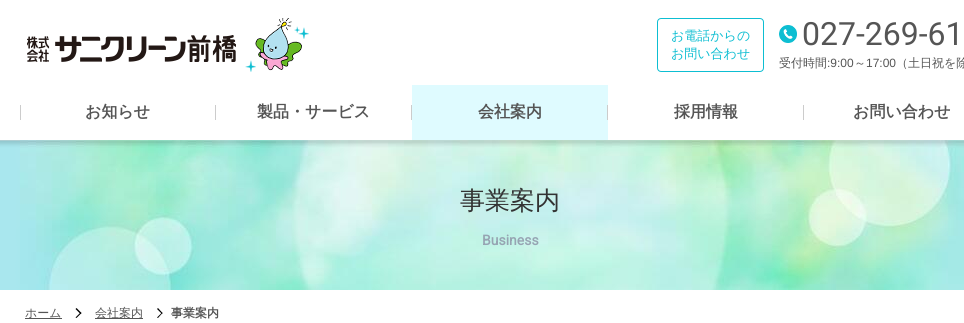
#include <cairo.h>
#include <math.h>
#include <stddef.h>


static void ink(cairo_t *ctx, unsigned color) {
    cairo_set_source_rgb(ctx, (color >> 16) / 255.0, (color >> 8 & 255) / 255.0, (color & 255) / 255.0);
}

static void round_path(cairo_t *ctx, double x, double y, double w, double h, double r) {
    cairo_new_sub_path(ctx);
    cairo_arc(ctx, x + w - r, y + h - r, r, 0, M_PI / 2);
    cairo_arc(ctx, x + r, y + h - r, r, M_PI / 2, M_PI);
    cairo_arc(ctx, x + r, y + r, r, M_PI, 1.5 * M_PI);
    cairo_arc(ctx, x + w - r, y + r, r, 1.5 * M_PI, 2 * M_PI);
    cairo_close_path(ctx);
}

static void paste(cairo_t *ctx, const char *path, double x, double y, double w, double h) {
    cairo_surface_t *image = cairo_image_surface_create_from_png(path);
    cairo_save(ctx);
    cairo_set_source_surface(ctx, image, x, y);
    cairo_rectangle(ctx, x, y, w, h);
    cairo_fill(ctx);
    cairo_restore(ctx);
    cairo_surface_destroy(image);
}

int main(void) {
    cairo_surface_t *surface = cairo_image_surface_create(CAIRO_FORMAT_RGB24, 964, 323);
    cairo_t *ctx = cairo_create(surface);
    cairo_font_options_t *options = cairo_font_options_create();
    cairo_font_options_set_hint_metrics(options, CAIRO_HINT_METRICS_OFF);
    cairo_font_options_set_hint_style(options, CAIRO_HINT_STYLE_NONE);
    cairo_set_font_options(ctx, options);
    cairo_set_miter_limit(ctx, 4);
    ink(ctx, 0xFFFFFF);
    cairo_paint(ctx);
    paste(ctx, "media/1.png", 27, 18, 282, 54);
    round_path(ctx, 657.5, 18.5, 106, 53, 3.5);
    ink(ctx, 0x0DBED2);
    cairo_set_line_width(ctx, 1);
    cairo_stroke(ctx);
    cairo_select_font_face(ctx, "WenQuanYi Zen Hei Medium", CAIRO_FONT_SLANT_NORMAL, CAIRO_FONT_WEIGHT_NORMAL);
    cairo_set_font_size(ctx, 13);
    cairo_move_to(ctx, 671, 40);
    cairo_show_text(ctx, "お電話からの");
    cairo_move_to(ctx, 671, 58);
    cairo_show_text(ctx, "お問い合わせ");
    paste(ctx, "media/2.png", 779, 25, 18, 18);
    cairo_select_font_face(ctx, "Roboto", CAIRO_FONT_SLANT_NORMAL, CAIRO_FONT_WEIGHT_NORMAL);
    cairo_set_font_size(ctx, 32);
    ink(ctx, 0x555555);
    cairo_move_to(ctx, 802, 45);
    cairo_show_text(ctx, "027-269-61");
    cairo_select_font_face(ctx, "WenQuanYi Zen Hei Medium", CAIRO_FONT_SLANT_NORMAL, CAIRO_FONT_WEIGHT_NORMAL);
    cairo_set_font_size(ctx, 12);
    cairo_move_to(ctx, 779, 67);
    cairo_show_text(ctx, "受付時間");
    cairo_select_font_face(ctx, "Liberation Sans", CAIRO_FONT_SLANT_NORMAL, CAIRO_FONT_WEIGHT_NORMAL);
    cairo_move_to(ctx, 827, 67);
    cairo_show_text(ctx, ":9:00");
    cairo_select_font_face(ctx, "WenQuanYi Zen Hei Medium", CAIRO_FONT_SLANT_NORMAL, CAIRO_FONT_WEIGHT_NORMAL);
    cairo_move_to(ctx, 854, 67);
    cairo_show_text(ctx, "～");
    cairo_select_font_face(ctx, "Liberation Sans", CAIRO_FONT_SLANT_NORMAL, CAIRO_FONT_WEIGHT_NORMAL);
    cairo_move_to(ctx, 866, 67);
    cairo_show_text(ctx, "17:00");
    cairo_select_font_face(ctx, "WenQuanYi Zen Hei Medium", CAIRO_FONT_SLANT_NORMAL, CAIRO_FONT_WEIGHT_NORMAL);
    cairo_move_to(ctx, 896, 67);
    cairo_show_text(ctx, "（土日祝を除");
    ink(ctx, 0xCCCCCC);
    cairo_rectangle(ctx, 20, 105, 1, 15);
    cairo_fill(ctx);
    cairo_select_font_face(ctx, "WenQuanYi Zen Hei", CAIRO_FONT_SLANT_NORMAL, CAIRO_FONT_WEIGHT_BOLD);
    cairo_set_font_size(ctx, 16);
    ink(ctx, 0x555555);
    cairo_move_to(ctx, 85, 117);
    cairo_show_text(ctx, "お知らせ");
    ink(ctx, 0xCCCCCC);
    cairo_rectangle(ctx, 215, 105, 1, 15);
    cairo_fill(ctx);
    ink(ctx, 0x555555);
    cairo_move_to(ctx, 257, 117);
    cairo_show_text(ctx, "製品・サービス");
    ink(ctx, 0xCCCCCC);
    cairo_rectangle(ctx, 411, 105, 1, 15);
    cairo_fill(ctx);
    ink(ctx, 0xDFFBFF);
    cairo_rectangle(ctx, 412, 85, 196, 55);
    cairo_fill(ctx);
    ink(ctx, 0x555555);
    cairo_move_to(ctx, 478, 117);
    cairo_show_text(ctx, "会社案内");
    ink(ctx, 0xCCCCCC);
    cairo_rectangle(ctx, 607, 105, 1, 15);
    cairo_fill(ctx);
    ink(ctx, 0x555555);
    cairo_move_to(ctx, 674, 117);
    cairo_show_text(ctx, "採用情報");
    ink(ctx, 0xCCCCCC);
    cairo_rectangle(ctx, 803, 105, 1, 15);
    cairo_fill(ctx);
    ink(ctx, 0x555555);
    cairo_move_to(ctx, 853, 117);
    cairo_show_text(ctx, "お問い合わせ");
    paste(ctx, "media/3.png", 0, 140, 20, 150);
    paste(ctx, "media/4.png", 20, 140, 944, 150);
    cairo_select_font_face(ctx, "WenQuanYi Zen Hei Medium", CAIRO_FONT_SLANT_NORMAL, CAIRO_FONT_WEIGHT_NORMAL);
    cairo_set_font_size(ctx, 25);
    ink(ctx, 0x333333);
    cairo_move_to(ctx, 460, 209);
    cairo_show_text(ctx, "事業案内");
    cairo_select_font_face(ctx, "Roboto", CAIRO_FONT_SLANT_NORMAL, CAIRO_FONT_WEIGHT_BOLD);
    cairo_set_font_size(ctx, 14);
    ink(ctx, 0x96A4B2);
    cairo_move_to(ctx, 482, 245);
    cairo_show_text(ctx, "Business");
    ink(ctx, 0x555555);
    cairo_rectangle(ctx, 25, 318, 37, 1);
    cairo_fill(ctx);
    cairo_select_font_face(ctx, "WenQuanYi Zen Hei Medium", CAIRO_FONT_SLANT_NORMAL, CAIRO_FONT_WEIGHT_NORMAL);
    cairo_set_font_size(ctx, 12);
    cairo_move_to(ctx, 25, 317);
    cairo_show_text(ctx, "ホーム");
    ink(ctx, 0x000000);
    cairo_new_path(ctx);
    cairo_move_to(ctx, 75.5, 309);
    cairo_line_to(ctx, 76.5, 308);
    cairo_line_to(ctx, 81.5, 313);
    cairo_line_to(ctx, 80.5, 314);
    cairo_close_path(ctx);
    cairo_fill(ctx);
    cairo_new_path(ctx);
    cairo_move_to(ctx, 75.5, 317.5);
    cairo_line_to(ctx, 80.5, 312.5);
    cairo_line_to(ctx, 81.5, 313);
    cairo_line_to(ctx, 76.5, 318);
    cairo_close_path(ctx);
    cairo_fill(ctx);
    ink(ctx, 0x555555);
    cairo_rectangle(ctx, 95, 318, 48, 1);
    cairo_fill(ctx);
    cairo_move_to(ctx, 95, 317);
    cairo_show_text(ctx, "会社案内");
    ink(ctx, 0x000000);
    cairo_new_path(ctx);
    cairo_move_to(ctx, 157, 309);
    cairo_line_to(ctx, 158, 308);
    cairo_line_to(ctx, 162.5, 313);
    cairo_line_to(ctx, 162, 314);
    cairo_close_path(ctx);
    cairo_fill(ctx);
    cairo_new_path(ctx);
    cairo_move_to(ctx, 157, 317.5);
    cairo_line_to(ctx, 162, 312.5);
    cairo_line_to(ctx, 162.5, 313);
    cairo_line_to(ctx, 158, 318);
    cairo_close_path(ctx);
    cairo_fill(ctx);
    cairo_select_font_face(ctx, "WenQuanYi Zen Hei", CAIRO_FONT_SLANT_NORMAL, CAIRO_FONT_WEIGHT_BOLD);
    ink(ctx, 0x555555);
    cairo_move_to(ctx, 171, 317);
    cairo_show_text(ctx, "事業案内");
    cairo_surface_write_to_png(surface, "image.png");
    cairo_font_options_destroy(options);
    cairo_destroy(ctx);
    cairo_surface_destroy(surface);
    return 0;
}
